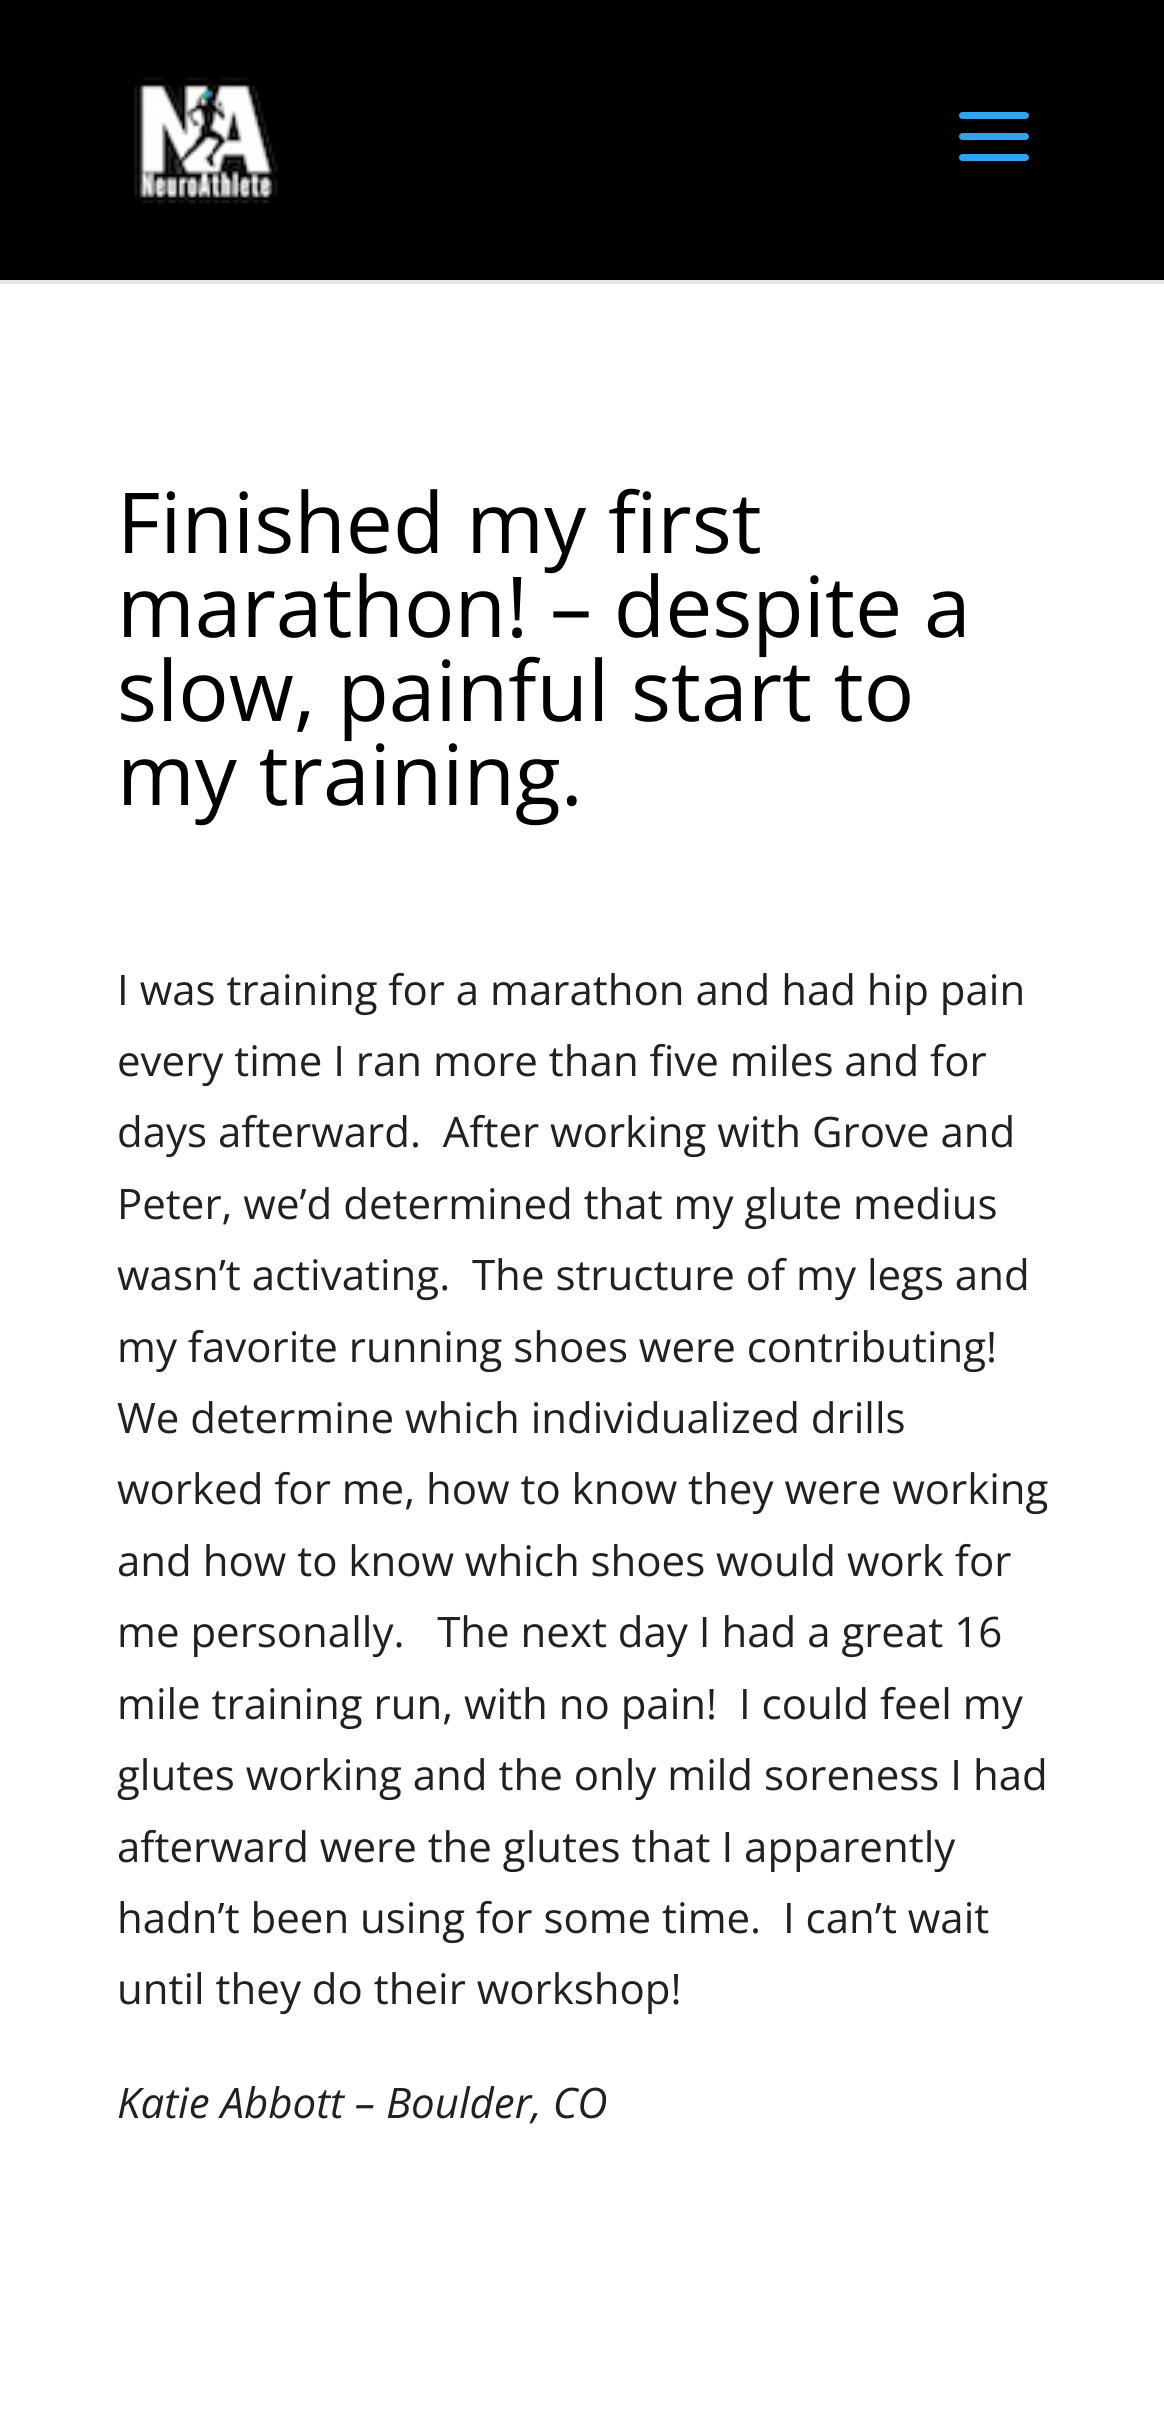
#include <cairo.h>
#include <math.h>
#include <stddef.h>

typedef struct { double x, y; const char *s; } line_t;

static void ink(cairo_t *ctx, unsigned color) {
    cairo_set_source_rgb(ctx, (color >> 16) / 255.0, (color >> 8 & 255) / 255.0, (color & 255) / 255.0);
}

static void paste(cairo_t *ctx, const char *path, double x, double y, double w, double h) {
    cairo_surface_t *image = cairo_image_surface_create_from_png(path);
    cairo_save(ctx);
    cairo_set_source_surface(ctx, image, x, y);
    cairo_rectangle(ctx, x, y, w, h);
    cairo_fill(ctx);
    cairo_restore(ctx);
    cairo_surface_destroy(image);
}

int main(void) {
    cairo_surface_t *surface = cairo_image_surface_create(CAIRO_FORMAT_RGB24, 1164, 2417);
    cairo_t *ctx = cairo_create(surface);
    cairo_font_options_t *options = cairo_font_options_create();
    cairo_font_options_set_hint_metrics(options, CAIRO_HINT_METRICS_OFF);
    cairo_font_options_set_hint_style(options, CAIRO_HINT_STYLE_NONE);
    cairo_set_font_options(ctx, options);
    cairo_set_miter_limit(ctx, 4);
    ink(ctx, 0xFFFFFF);
    cairo_paint(ctx);
    ink(ctx, 0xE6E6E6);
    cairo_new_path(ctx);
    cairo_move_to(ctx, 0, 280);
    cairo_line_to(ctx, 0, 284);
    cairo_line_to(ctx, 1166, 284);
    cairo_line_to(ctx, 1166, 4);
    cairo_line_to(ctx, 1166, 280);
    cairo_close_path(ctx);
    cairo_fill(ctx);
    ink(ctx, 0x000000);
    cairo_rectangle(ctx, 0, 0, 1164, 280);
    cairo_fill(ctx);
    paste(ctx, "media/1.png", 134, 77, 144, 127);
    paste(ctx, "media/2.png", 959, 112, 70, 49);
    cairo_select_font_face(ctx, "Open Sans", CAIRO_FONT_SLANT_NORMAL, CAIRO_FONT_WEIGHT_NORMAL);
    cairo_set_font_size(ctx, 84);
    {
        static const line_t items[] = {
            {117, 553, "Finished my first"},
            {117, 637, "marathon! – despite a"},
            {117, 721, "slow, painful start to"},
            {117, 805, "my training."},
        };
        for (size_t i = 0; i < sizeof items / sizeof *items; i++) {
            cairo_move_to(ctx, items[i].x, items[i].y);
            cairo_show_text(ctx, items[i].s);
        }
    }
    cairo_set_font_size(ctx, 42);
    ink(ctx, 0x212121);
    {
        static const line_t items[] = {
            {117, 1005, "I was training for a marathon and had hip pain"},
            {117, 1076, "every time I ran more than five miles and for"},
            {117, 1147, "days afterward.  After working with Grove and"},
            {117, 1219, "Peter, we’d determined that my glute medius"},
            {117, 1290, "wasn’t activating.  The structure of my legs and"},
            {117, 1362, "my favorite running shoes were contributing!"},
            {117, 1433, "We determine which individualized drills"},
            {117, 1504, "worked for me, how to know they were working"},
            {117, 1576, "and how to know which shoes would work for"},
            {117, 1647, "me personally.   The next day I had a great 16"},
            {117, 1719, "mile training run, with no pain!  I could feel my"},
            {117, 1790, "glutes working and the only mild soreness I had"},
            {117, 1862, "afterward were the glutes that I apparently"},
            {117, 1933, "hadn’t been using for some time.  I can’t wait"},
            {117, 2004, "until they do their workshop!"},
        };
        for (size_t i = 0; i < sizeof items / sizeof *items; i++) {
            cairo_move_to(ctx, items[i].x, items[i].y);
            cairo_show_text(ctx, items[i].s);
        }
    }
    cairo_select_font_face(ctx, "Open Sans", CAIRO_FONT_SLANT_ITALIC, CAIRO_FONT_WEIGHT_NORMAL);
    cairo_move_to(ctx, 117, 2118);
    cairo_show_text(ctx, "Katie Abbott – Boulder, CO");
    cairo_surface_write_to_png(surface, "image.png");
    cairo_font_options_destroy(options);
    cairo_destroy(ctx);
    cairo_surface_destroy(surface);
    return 0;
}
